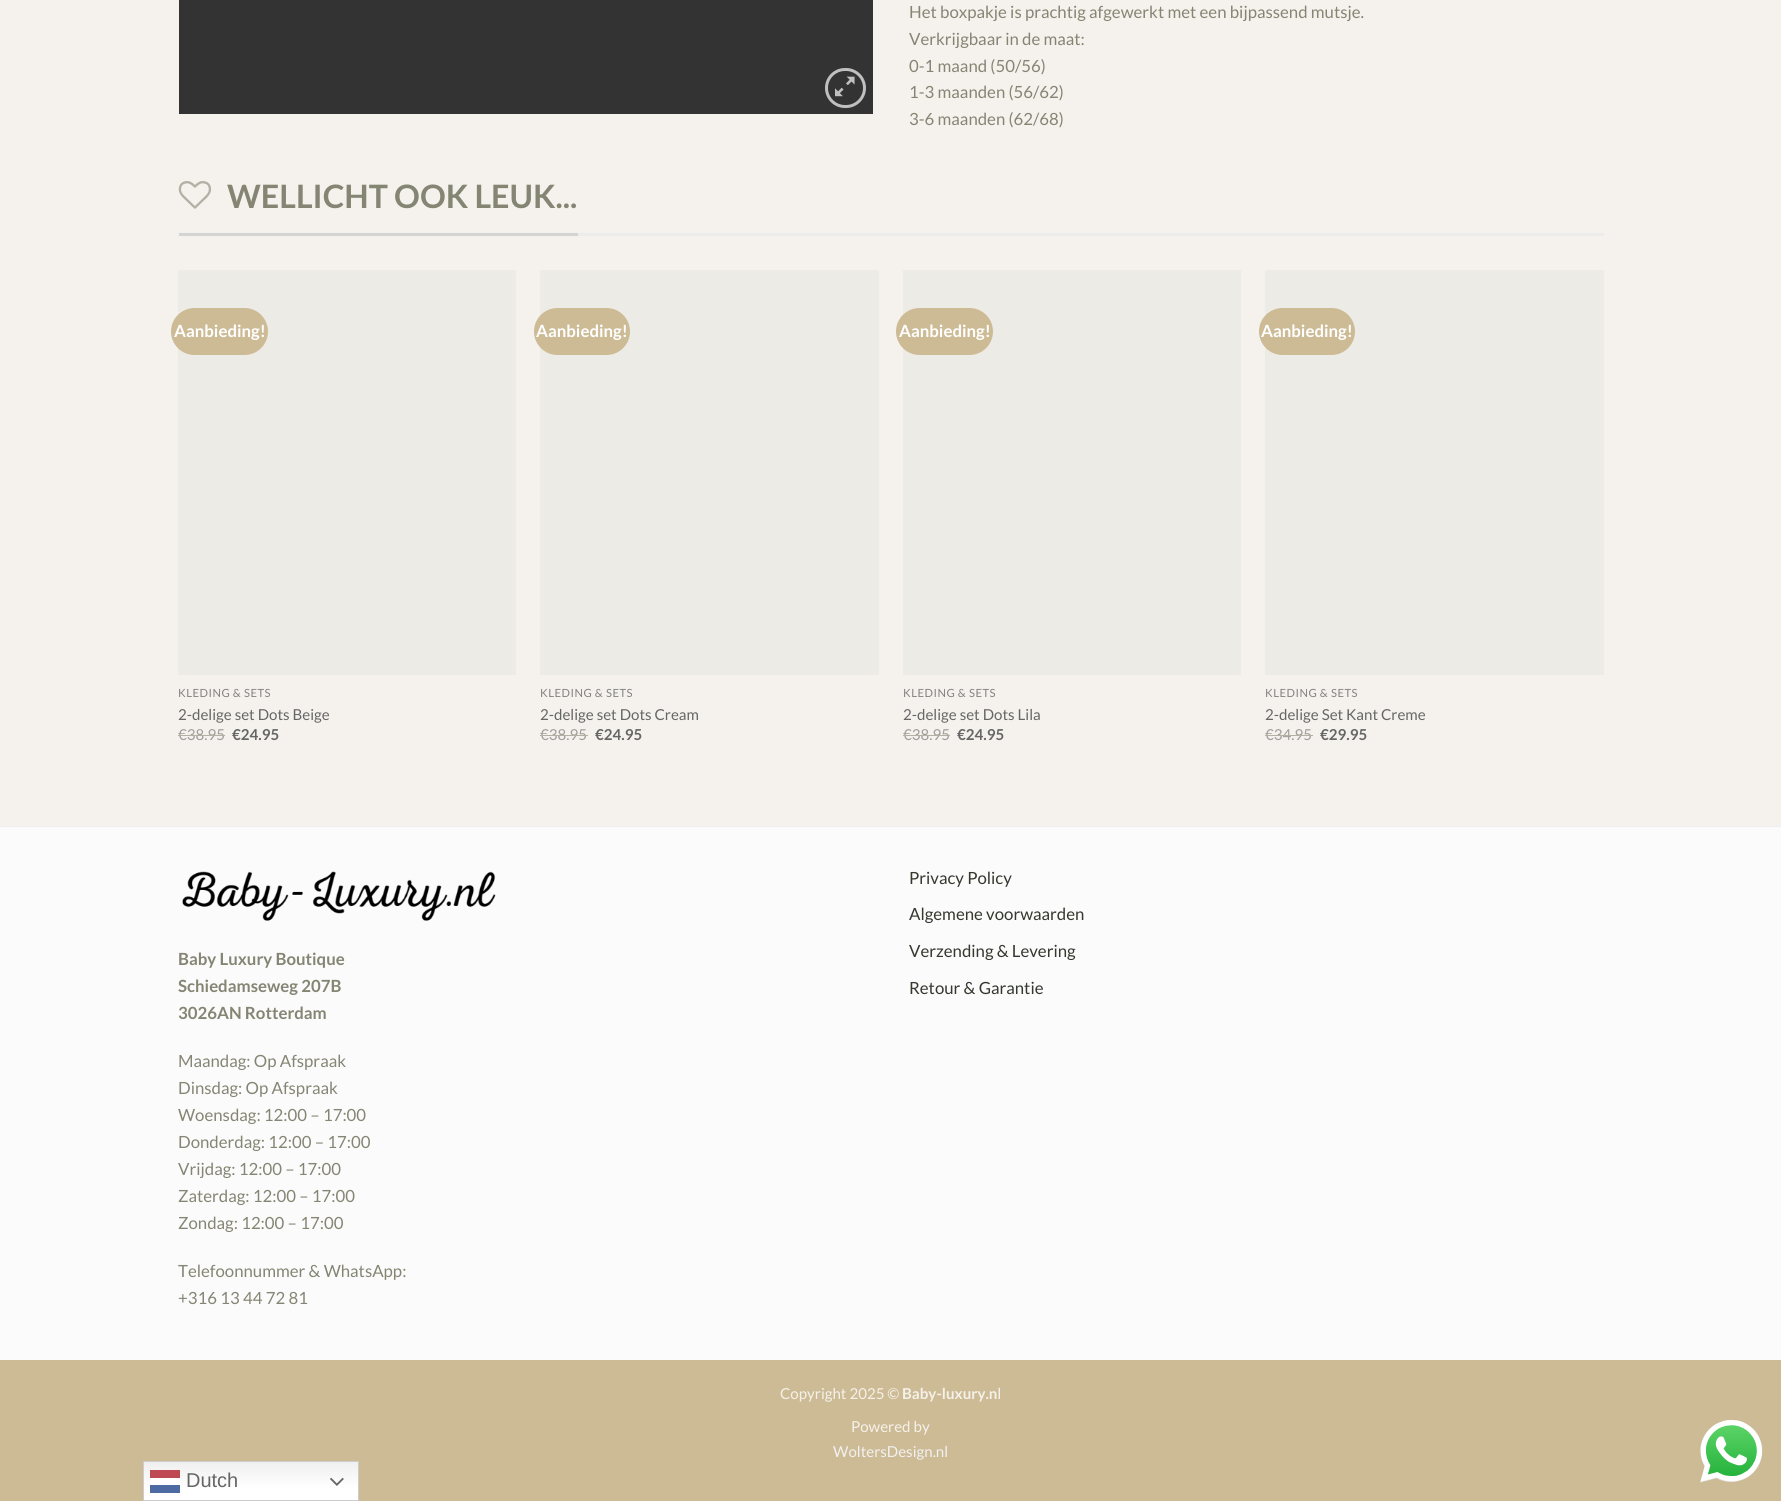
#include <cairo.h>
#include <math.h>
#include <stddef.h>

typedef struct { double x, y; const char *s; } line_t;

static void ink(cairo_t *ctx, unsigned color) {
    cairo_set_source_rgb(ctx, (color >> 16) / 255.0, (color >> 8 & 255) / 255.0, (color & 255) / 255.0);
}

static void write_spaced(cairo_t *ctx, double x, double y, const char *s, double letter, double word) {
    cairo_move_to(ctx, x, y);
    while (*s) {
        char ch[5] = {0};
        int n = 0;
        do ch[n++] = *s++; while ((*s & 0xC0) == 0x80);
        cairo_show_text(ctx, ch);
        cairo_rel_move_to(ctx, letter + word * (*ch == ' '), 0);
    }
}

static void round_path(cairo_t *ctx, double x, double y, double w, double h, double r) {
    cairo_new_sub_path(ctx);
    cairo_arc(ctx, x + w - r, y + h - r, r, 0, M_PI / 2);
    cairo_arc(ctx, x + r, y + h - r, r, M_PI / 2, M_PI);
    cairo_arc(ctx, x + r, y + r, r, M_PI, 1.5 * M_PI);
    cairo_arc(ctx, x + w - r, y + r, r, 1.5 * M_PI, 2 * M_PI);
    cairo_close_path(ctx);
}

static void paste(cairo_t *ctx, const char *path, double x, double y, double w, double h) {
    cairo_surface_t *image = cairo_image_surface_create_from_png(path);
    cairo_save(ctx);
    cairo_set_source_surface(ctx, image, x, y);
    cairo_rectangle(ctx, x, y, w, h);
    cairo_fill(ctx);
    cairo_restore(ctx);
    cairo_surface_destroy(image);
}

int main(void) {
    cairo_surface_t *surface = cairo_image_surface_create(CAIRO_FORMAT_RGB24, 1781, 1501);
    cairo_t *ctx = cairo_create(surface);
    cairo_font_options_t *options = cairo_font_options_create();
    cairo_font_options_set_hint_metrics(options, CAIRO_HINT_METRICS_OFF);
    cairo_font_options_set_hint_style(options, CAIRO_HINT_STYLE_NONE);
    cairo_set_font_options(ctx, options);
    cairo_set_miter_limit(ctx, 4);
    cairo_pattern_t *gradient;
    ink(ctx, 0xF5F2ED);
    cairo_paint(ctx);
    ink(ctx, 0x333333);
    cairo_rectangle(ctx, 179, 0, 694, 114);
    cairo_fill(ctx);
    round_path(ctx, 826.5, 69.5, 38, 37, 18.5);
    ink(ctx, 0xC0C0C0);
    cairo_set_line_width(ctx, 3);
    cairo_stroke(ctx);
    paste(ctx, "media/1.png", 835, 76, 20, 21);
    cairo_select_font_face(ctx, "Lato", CAIRO_FONT_SLANT_NORMAL, CAIRO_FONT_WEIGHT_NORMAL);
    cairo_set_font_size(ctx, 16.8);
    ink(ctx, 0x858574);
    {
        static const line_t items[] = {
            {909, 18, "Het boxpakje is prachtig afgewerkt met een bijpassend mutsje."},
            {909, 45, "Verkrijgbaar in de maat:"},
            {909, 72, "0-1 maand (50/56)"},
            {909, 98, "1-3 maanden (56/62)"},
            {909, 125, "3-6 maanden (62/68)"},
        };
        for (size_t i = 0; i < sizeof items / sizeof *items; i++) {
            cairo_move_to(ctx, items[i].x, items[i].y);
            cairo_show_text(ctx, items[i].s);
        }
    }
    ink(ctx, 0xECECEC);
    cairo_rectangle(ctx, 578, 233, 1026, 3);
    cairo_fill(ctx);
    ink(ctx, 0xD4D4D4);
    cairo_rectangle(ctx, 179, 233, 399, 3);
    cairo_fill(ctx);
    paste(ctx, "media/2.png", 178, 181, 34, 28);
    cairo_select_font_face(ctx, "Lato", CAIRO_FONT_SLANT_NORMAL, CAIRO_FONT_WEIGHT_BOLD);
    cairo_set_font_size(ctx, 32.25);
    ink(ctx, 0x858574);
    cairo_move_to(ctx, 227, 208);
    cairo_show_text(ctx, "WELLICHT OOK LEUK...");
    ink(ctx, 0xEDEBE5);
    cairo_rectangle(ctx, 178, 270, 338, 405);
    cairo_fill(ctx);
    ink(ctx, 0xCDBB95);
    round_path(ctx, 171, 308, 97, 47, 23.5);
    cairo_fill(ctx);
    cairo_set_font_size(ctx, 16.8);
    ink(ctx, 0xFFFFFF);
    cairo_move_to(ctx, 174, 337);
    cairo_show_text(ctx, "Aanbieding!");
    cairo_select_font_face(ctx, "Lato", CAIRO_FONT_SLANT_NORMAL, CAIRO_FONT_WEIGHT_NORMAL);
    cairo_set_font_size(ctx, 11.25);
    ink(ctx, 0x838281);
    write_spaced(ctx, 178, 697, "KLEDING & SETS", 0.5, 0);
    cairo_set_font_size(ctx, 15.1);
    ink(ctx, 0x666666);
    cairo_move_to(ctx, 178, 720);
    cairo_show_text(ctx, "2-delige set Dots Beige");
    ink(ctx, 0x9F9E9C);
    cairo_move_to(ctx, 178, 740);
    cairo_show_text(ctx, "€38.95");
    ink(ctx, 0xB2B1A4);
    cairo_rectangle(ctx, 178, 735, 47, 1);
    cairo_fill(ctx);
    cairo_select_font_face(ctx, "Lato", CAIRO_FONT_SLANT_NORMAL, CAIRO_FONT_WEIGHT_BOLD);
    ink(ctx, 0x666666);
    cairo_move_to(ctx, 232, 740);
    cairo_show_text(ctx, "€24.95");
    ink(ctx, 0xEDEBE5);
    cairo_rectangle(ctx, 540, 270, 339, 405);
    cairo_fill(ctx);
    ink(ctx, 0xCDBB95);
    round_path(ctx, 534, 308, 96, 47, 23.5);
    cairo_fill(ctx);
    cairo_set_font_size(ctx, 16.8);
    ink(ctx, 0xFFFFFF);
    cairo_move_to(ctx, 536, 337);
    cairo_show_text(ctx, "Aanbieding!");
    cairo_select_font_face(ctx, "Lato", CAIRO_FONT_SLANT_NORMAL, CAIRO_FONT_WEIGHT_NORMAL);
    cairo_set_font_size(ctx, 11.25);
    ink(ctx, 0x838281);
    write_spaced(ctx, 540, 697, "KLEDING & SETS", 0.5, 0);
    cairo_set_font_size(ctx, 15.1);
    ink(ctx, 0x666666);
    cairo_move_to(ctx, 540, 720);
    cairo_show_text(ctx, "2-delige set Dots Cream");
    ink(ctx, 0x9F9E9C);
    cairo_move_to(ctx, 540, 740);
    cairo_show_text(ctx, "€38.95");
    ink(ctx, 0xB2B1A4);
    cairo_rectangle(ctx, 540, 735, 48, 1);
    cairo_fill(ctx);
    cairo_select_font_face(ctx, "Lato", CAIRO_FONT_SLANT_NORMAL, CAIRO_FONT_WEIGHT_BOLD);
    ink(ctx, 0x666666);
    cairo_move_to(ctx, 595, 740);
    cairo_show_text(ctx, "€24.95");
    ink(ctx, 0xEDEBE5);
    cairo_rectangle(ctx, 903, 270, 338, 405);
    cairo_fill(ctx);
    ink(ctx, 0xCDBB95);
    round_path(ctx, 896, 308, 97, 47, 23.5);
    cairo_fill(ctx);
    cairo_set_font_size(ctx, 16.8);
    ink(ctx, 0xFFFFFF);
    cairo_move_to(ctx, 899, 337);
    cairo_show_text(ctx, "Aanbieding!");
    cairo_select_font_face(ctx, "Lato", CAIRO_FONT_SLANT_NORMAL, CAIRO_FONT_WEIGHT_NORMAL);
    cairo_set_font_size(ctx, 11.25);
    ink(ctx, 0x838281);
    write_spaced(ctx, 903, 697, "KLEDING & SETS", 0.5, 0);
    cairo_set_font_size(ctx, 15.1);
    ink(ctx, 0x666666);
    cairo_move_to(ctx, 903, 720);
    cairo_show_text(ctx, "2-delige set Dots Lila");
    ink(ctx, 0x9F9E9C);
    cairo_move_to(ctx, 903, 740);
    cairo_show_text(ctx, "€38.95");
    ink(ctx, 0xB2B1A4);
    cairo_rectangle(ctx, 903, 735, 47, 1);
    cairo_fill(ctx);
    cairo_select_font_face(ctx, "Lato", CAIRO_FONT_SLANT_NORMAL, CAIRO_FONT_WEIGHT_BOLD);
    ink(ctx, 0x666666);
    cairo_move_to(ctx, 957, 740);
    cairo_show_text(ctx, "€24.95");
    ink(ctx, 0xEDEBE5);
    cairo_rectangle(ctx, 1265, 270, 339, 405);
    cairo_fill(ctx);
    ink(ctx, 0xCDBB95);
    round_path(ctx, 1259, 308, 96, 47, 23.5);
    cairo_fill(ctx);
    cairo_set_font_size(ctx, 16.8);
    ink(ctx, 0xFFFFFF);
    cairo_move_to(ctx, 1261, 337);
    cairo_show_text(ctx, "Aanbieding!");
    cairo_select_font_face(ctx, "Lato", CAIRO_FONT_SLANT_NORMAL, CAIRO_FONT_WEIGHT_NORMAL);
    cairo_set_font_size(ctx, 11.25);
    ink(ctx, 0x838281);
    write_spaced(ctx, 1265, 697, "KLEDING & SETS", 0.5, 0);
    cairo_set_font_size(ctx, 15.1);
    ink(ctx, 0x666666);
    cairo_move_to(ctx, 1265, 720);
    cairo_show_text(ctx, "2-delige Set Kant Creme");
    ink(ctx, 0x9F9E9C);
    cairo_move_to(ctx, 1265, 740);
    cairo_show_text(ctx, "€34.95");
    ink(ctx, 0xB2B1A4);
    cairo_rectangle(ctx, 1265, 735, 48, 1);
    cairo_fill(ctx);
    cairo_select_font_face(ctx, "Lato", CAIRO_FONT_SLANT_NORMAL, CAIRO_FONT_WEIGHT_BOLD);
    ink(ctx, 0x666666);
    cairo_move_to(ctx, 1320, 740);
    cairo_show_text(ctx, "€29.95");
    ink(ctx, 0xFBFBFB);
    cairo_rectangle(ctx, 0, 827, 1781, 533);
    cairo_fill(ctx);
    ink(ctx, 0xEEEEEE);
    cairo_rectangle(ctx, 0, 826, 1781, 1);
    cairo_fill(ctx);
    cairo_select_font_face(ctx, "Lato", CAIRO_FONT_SLANT_NORMAL, CAIRO_FONT_WEIGHT_NORMAL);
    cairo_set_font_size(ctx, 16.8);
    ink(ctx, 0x35382E);
    {
        static const line_t items[] = {
            {909, 884, "Privacy Policy"},
            {909, 920, "Algemene voorwaarden"},
            {909, 957, "Verzending & Levering"},
            {909, 994, "Retour & Garantie"},
        };
        for (size_t i = 0; i < sizeof items / sizeof *items; i++) {
            cairo_move_to(ctx, items[i].x, items[i].y);
            cairo_show_text(ctx, items[i].s);
        }
    }
    paste(ctx, "media/3.png", 182, 871, 314, 50);
    cairo_select_font_face(ctx, "Lato", CAIRO_FONT_SLANT_NORMAL, CAIRO_FONT_WEIGHT_BOLD);
    ink(ctx, 0x858574);
    {
        static const line_t items[] = {
            {178, 965, "Baby Luxury Boutique"},
            {178, 992, "Schiedamseweg 207B"},
            {178, 1019, "3026AN Rotterdam"},
        };
        for (size_t i = 0; i < sizeof items / sizeof *items; i++) {
            cairo_move_to(ctx, items[i].x, items[i].y);
            cairo_show_text(ctx, items[i].s);
        }
    }
    cairo_select_font_face(ctx, "Lato", CAIRO_FONT_SLANT_NORMAL, CAIRO_FONT_WEIGHT_NORMAL);
    {
        static const line_t items[] = {
            {178, 1067, "Maandag: Op Afspraak"},
            {178, 1094, "Dinsdag: Op Afspraak"},
            {178, 1121, "Woensdag: 12:00 – 17:00"},
            {178, 1148, "Donderdag: 12:00 – 17:00"},
            {178, 1175, "Vrijdag: 12:00 – 17:00"},
            {178, 1202, "Zaterdag: 12:00 – 17:00"},
            {178, 1229, "Zondag: 12:00 – 17:00"},
            {178, 1277, "Telefoonnummer & WhatsApp:"},
            {178, 1304, "+316 13 44 72 81"},
        };
        for (size_t i = 0; i < sizeof items / sizeof *items; i++) {
            cairo_move_to(ctx, items[i].x, items[i].y);
            cairo_show_text(ctx, items[i].s);
        }
    }
    ink(ctx, 0xCDBB95);
    cairo_rectangle(ctx, 0, 1360, 1781, 141);
    cairo_fill(ctx);
    cairo_set_font_size(ctx, 15.1);
    ink(ctx, 0xF5F1EA);
    cairo_move_to(ctx, 780, 1399);
    cairo_show_text(ctx, "Copyright 2025 ©");
    cairo_select_font_face(ctx, "Lato", CAIRO_FONT_SLANT_NORMAL, CAIRO_FONT_WEIGHT_BOLD);
    cairo_move_to(ctx, 902, 1399);
    cairo_show_text(ctx, "Baby-luxury.nl");
    cairo_select_font_face(ctx, "Lato", CAIRO_FONT_SLANT_NORMAL, CAIRO_FONT_WEIGHT_NORMAL);
    cairo_move_to(ctx, 851, 1432);
    cairo_show_text(ctx, "Powered by");
    ink(ctx, 0xF1F1F1);
    cairo_move_to(ctx, 833, 1457);
    cairo_show_text(ctx, "WoltersDesign.nl");
    paste(ctx, "media/4.png", 1700, 1420, 63, 63);
    gradient = cairo_pattern_create_linear(251, 1461, 251, 1501);
    cairo_pattern_add_color_stop_rgba(gradient, 0, 0.937, 0.937, 0.937, 1);
    cairo_pattern_add_color_stop_rgba(gradient, 0.7, 1, 1, 1, 1);
    cairo_set_source(ctx, gradient);
    cairo_pattern_destroy(gradient);
    cairo_rectangle(ctx, 144, 1462, 214, 38);
    cairo_fill(ctx);
    gradient = cairo_pattern_create_linear(251, 1461, 251, 1501);
    cairo_pattern_add_color_stop_rgba(gradient, 0, 0.988, 0.988, 0.988, 1);
    cairo_pattern_add_color_stop_rgba(gradient, 0.7, 1, 1, 1, 1);
    cairo_set_source(ctx, gradient);
    cairo_pattern_destroy(gradient);
    cairo_rectangle(ctx, 150, 1478, 30, 7);
    cairo_fill(ctx);
    cairo_rectangle(ctx, 143.5, 1461.5, 215, 39);
    ink(ctx, 0xCCCCCC);
    cairo_set_line_width(ctx, 1);
    cairo_stroke(ctx);
    ink(ctx, 0xBE4953);
    cairo_rectangle(ctx, 150, 1470, 30, 8);
    cairo_fill(ctx);
    cairo_select_font_face(ctx, "Liberation Sans", CAIRO_FONT_SLANT_NORMAL, CAIRO_FONT_WEIGHT_NORMAL);
    cairo_set_font_size(ctx, 20);
    ink(ctx, 0x666666);
    cairo_move_to(ctx, 186, 1487);
    cairo_show_text(ctx, "Dutch");
    paste(ctx, "media/5.png", 330, 1477, 14, 9);
    ink(ctx, 0x4D6BA2);
    cairo_rectangle(ctx, 150, 1485, 30, 8);
    cairo_fill(ctx);
    cairo_surface_write_to_png(surface, "image.png");
    cairo_font_options_destroy(options);
    cairo_destroy(ctx);
    cairo_surface_destroy(surface);
    return 0;
}
